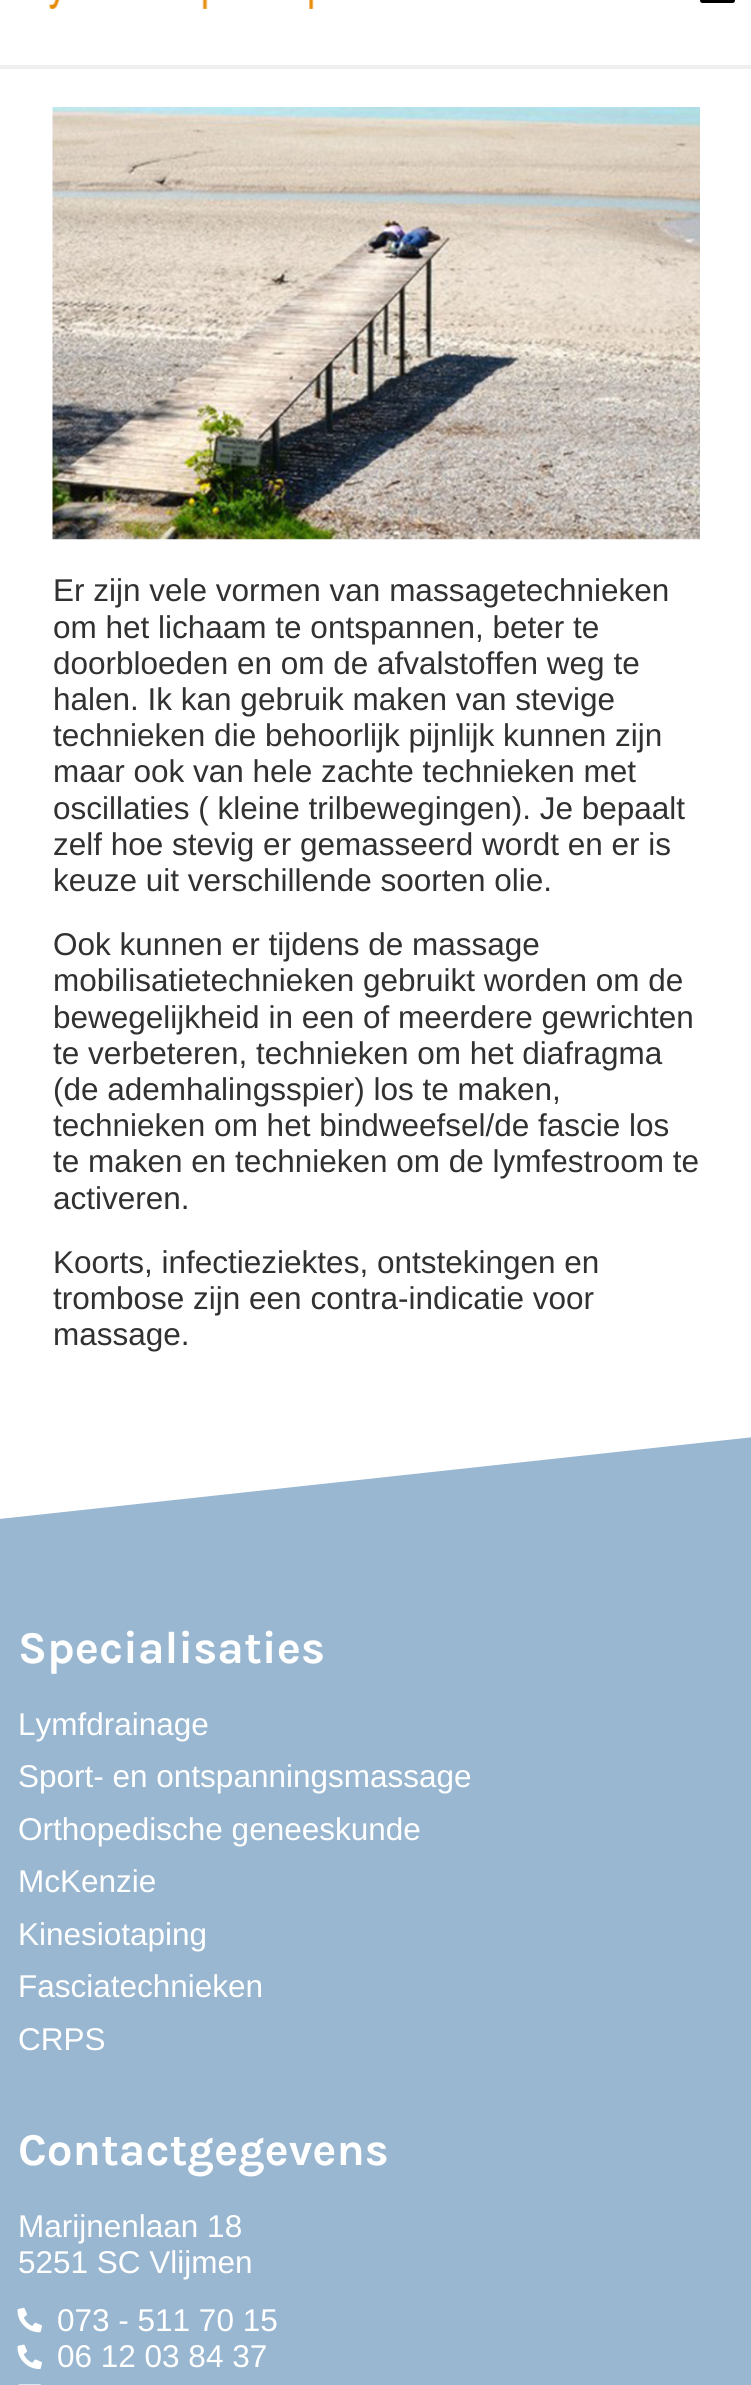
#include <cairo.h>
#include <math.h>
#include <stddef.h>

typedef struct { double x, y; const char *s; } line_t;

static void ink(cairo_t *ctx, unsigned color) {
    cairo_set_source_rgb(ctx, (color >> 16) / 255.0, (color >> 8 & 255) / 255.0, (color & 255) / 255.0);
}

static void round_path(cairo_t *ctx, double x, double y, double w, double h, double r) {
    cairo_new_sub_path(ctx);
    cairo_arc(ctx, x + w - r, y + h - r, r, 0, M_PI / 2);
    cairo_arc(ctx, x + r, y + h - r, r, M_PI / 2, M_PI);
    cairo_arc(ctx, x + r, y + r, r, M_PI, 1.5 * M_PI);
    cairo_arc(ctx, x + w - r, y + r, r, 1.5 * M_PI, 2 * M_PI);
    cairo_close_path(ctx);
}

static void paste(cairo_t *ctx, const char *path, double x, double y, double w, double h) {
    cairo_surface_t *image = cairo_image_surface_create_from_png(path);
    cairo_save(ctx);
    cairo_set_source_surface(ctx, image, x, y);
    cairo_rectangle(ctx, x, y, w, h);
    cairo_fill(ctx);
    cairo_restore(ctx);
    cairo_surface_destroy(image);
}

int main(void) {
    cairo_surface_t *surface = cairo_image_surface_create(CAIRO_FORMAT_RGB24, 751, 2385);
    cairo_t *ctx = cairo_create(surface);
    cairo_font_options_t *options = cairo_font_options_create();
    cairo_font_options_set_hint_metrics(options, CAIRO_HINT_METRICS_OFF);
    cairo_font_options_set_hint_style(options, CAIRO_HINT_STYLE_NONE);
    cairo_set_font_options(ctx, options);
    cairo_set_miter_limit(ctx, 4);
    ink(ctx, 0xFFFFFF);
    cairo_paint(ctx);
    ink(ctx, 0xEFEFEF);
    cairo_rectangle(ctx, 0, 65, 751, 4);
    cairo_fill(ctx);
    paste(ctx, "media/1.png", 48, 0, 266, 9);
    ink(ctx, 0x000000);
    round_path(ctx, 700, -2, 35, 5, 2.5);
    cairo_fill(ctx);
    paste(ctx, "media/2.png", 52, 107, 648, 433);
    cairo_select_font_face(ctx, "Liberation Sans", CAIRO_FONT_SLANT_NORMAL, CAIRO_FONT_WEIGHT_NORMAL);
    cairo_set_font_size(ctx, 31.5);
    ink(ctx, 0x313131);
    {
        static const line_t items[] = {
            {53, 601, "Er zijn vele vormen van massagetechnieken"},
            {53, 638, "om het lichaam te ontspannen, beter te"},
            {53, 674, "doorbloeden en om de afvalstoffen weg te"},
            {53, 710, "halen. Ik kan gebruik maken van stevige"},
            {53, 746, "technieken die behoorlijk pijnlijk kunnen zijn"},
            {53, 782, "maar ook van hele zachte technieken met"},
            {53, 819, "oscillaties ( kleine trilbewegingen). Je bepaalt"},
            {53, 855, "zelf hoe stevig er gemasseerd wordt en er is"},
            {53, 891, "keuze uit verschillende soorten olie."},
            {53, 955, "Ook kunnen er tijdens de massage"},
            {53, 991, "mobilisatietechnieken gebruikt worden om de"},
            {53, 1028, "bewegelijkheid in een of meerdere gewrichten"},
            {53, 1064, "te verbeteren, technieken om het diafragma"},
            {53, 1100, "(de ademhalingsspier) los te maken,"},
            {53, 1136, "technieken om het bindweefsel/de fascie los"},
            {53, 1172, "te maken en technieken om de lymfestroom te"},
            {53, 1209, "activeren."},
            {53, 1273, "Koorts, infectieziektes, ontstekingen en"},
            {53, 1309, "trombose zijn een contra-indicatie voor"},
            {53, 1345, "massage."},
        };
        for (size_t i = 0; i < sizeof items / sizeof *items; i++) {
            cairo_move_to(ctx, items[i].x, items[i].y);
            cairo_show_text(ctx, items[i].s);
        }
    }
    ink(ctx, 0x99B7D1);
    cairo_rectangle(ctx, 0, 1437, 751, 948);
    cairo_fill(ctx);
    ink(ctx, 0xFFFFFF);
    cairo_new_path(ctx);
    cairo_move_to(ctx, 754, 1437);
    cairo_line_to(ctx, 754, 1432);
    cairo_line_to(ctx, -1, 1432);
    cairo_line_to(ctx, -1, 1519);
    cairo_close_path(ctx);
    cairo_fill(ctx);
    cairo_select_font_face(ctx, "Karla", CAIRO_FONT_SLANT_NORMAL, CAIRO_FONT_WEIGHT_BOLD);
    cairo_set_font_size(ctx, 45.5);
    cairo_move_to(ctx, 18, 1663);
    cairo_show_text(ctx, "Specialisaties");
    cairo_select_font_face(ctx, "Liberation Sans", CAIRO_FONT_SLANT_NORMAL, CAIRO_FONT_WEIGHT_NORMAL);
    cairo_set_font_size(ctx, 31.5);
    {
        static const line_t items[] = {
            {18, 1735, "Lymfdrainage"},
            {18, 1787, "Sport- en ontspanningsmassage"},
            {18, 1840, "Orthopedische geneeskunde"},
            {18, 1892, "McKenzie"},
            {18, 1945, "Kinesiotaping"},
            {18, 1997, "Fasciatechnieken"},
            {18, 2050, "CRPS"},
        };
        for (size_t i = 0; i < sizeof items / sizeof *items; i++) {
            cairo_move_to(ctx, items[i].x, items[i].y);
            cairo_show_text(ctx, items[i].s);
        }
    }
    cairo_select_font_face(ctx, "Karla", CAIRO_FONT_SLANT_NORMAL, CAIRO_FONT_WEIGHT_BOLD);
    cairo_set_font_size(ctx, 45.5);
    cairo_move_to(ctx, 18, 2165);
    cairo_show_text(ctx, "Contactgegevens");
    cairo_select_font_face(ctx, "Liberation Sans", CAIRO_FONT_SLANT_NORMAL, CAIRO_FONT_WEIGHT_NORMAL);
    cairo_set_font_size(ctx, 31.5);
    cairo_move_to(ctx, 18, 2237);
    cairo_show_text(ctx, "Marijnenlaan 18");
    cairo_move_to(ctx, 18, 2273);
    cairo_show_text(ctx, "5251 SC Vlijmen");
    paste(ctx, "media/3.png", 17, 2307, 25, 26);
    cairo_move_to(ctx, 57, 2331);
    cairo_show_text(ctx, "073 - 511 70 15");
    paste(ctx, "media/4.png", 17, 2344, 25, 26);
    cairo_move_to(ctx, 57, 2367);
    cairo_show_text(ctx, "06 12 03 84 37");
    paste(ctx, "media/5.png", 18, 2384, 23, 1);
    cairo_surface_write_to_png(surface, "image.png");
    cairo_font_options_destroy(options);
    cairo_destroy(ctx);
    cairo_surface_destroy(surface);
    return 0;
}
